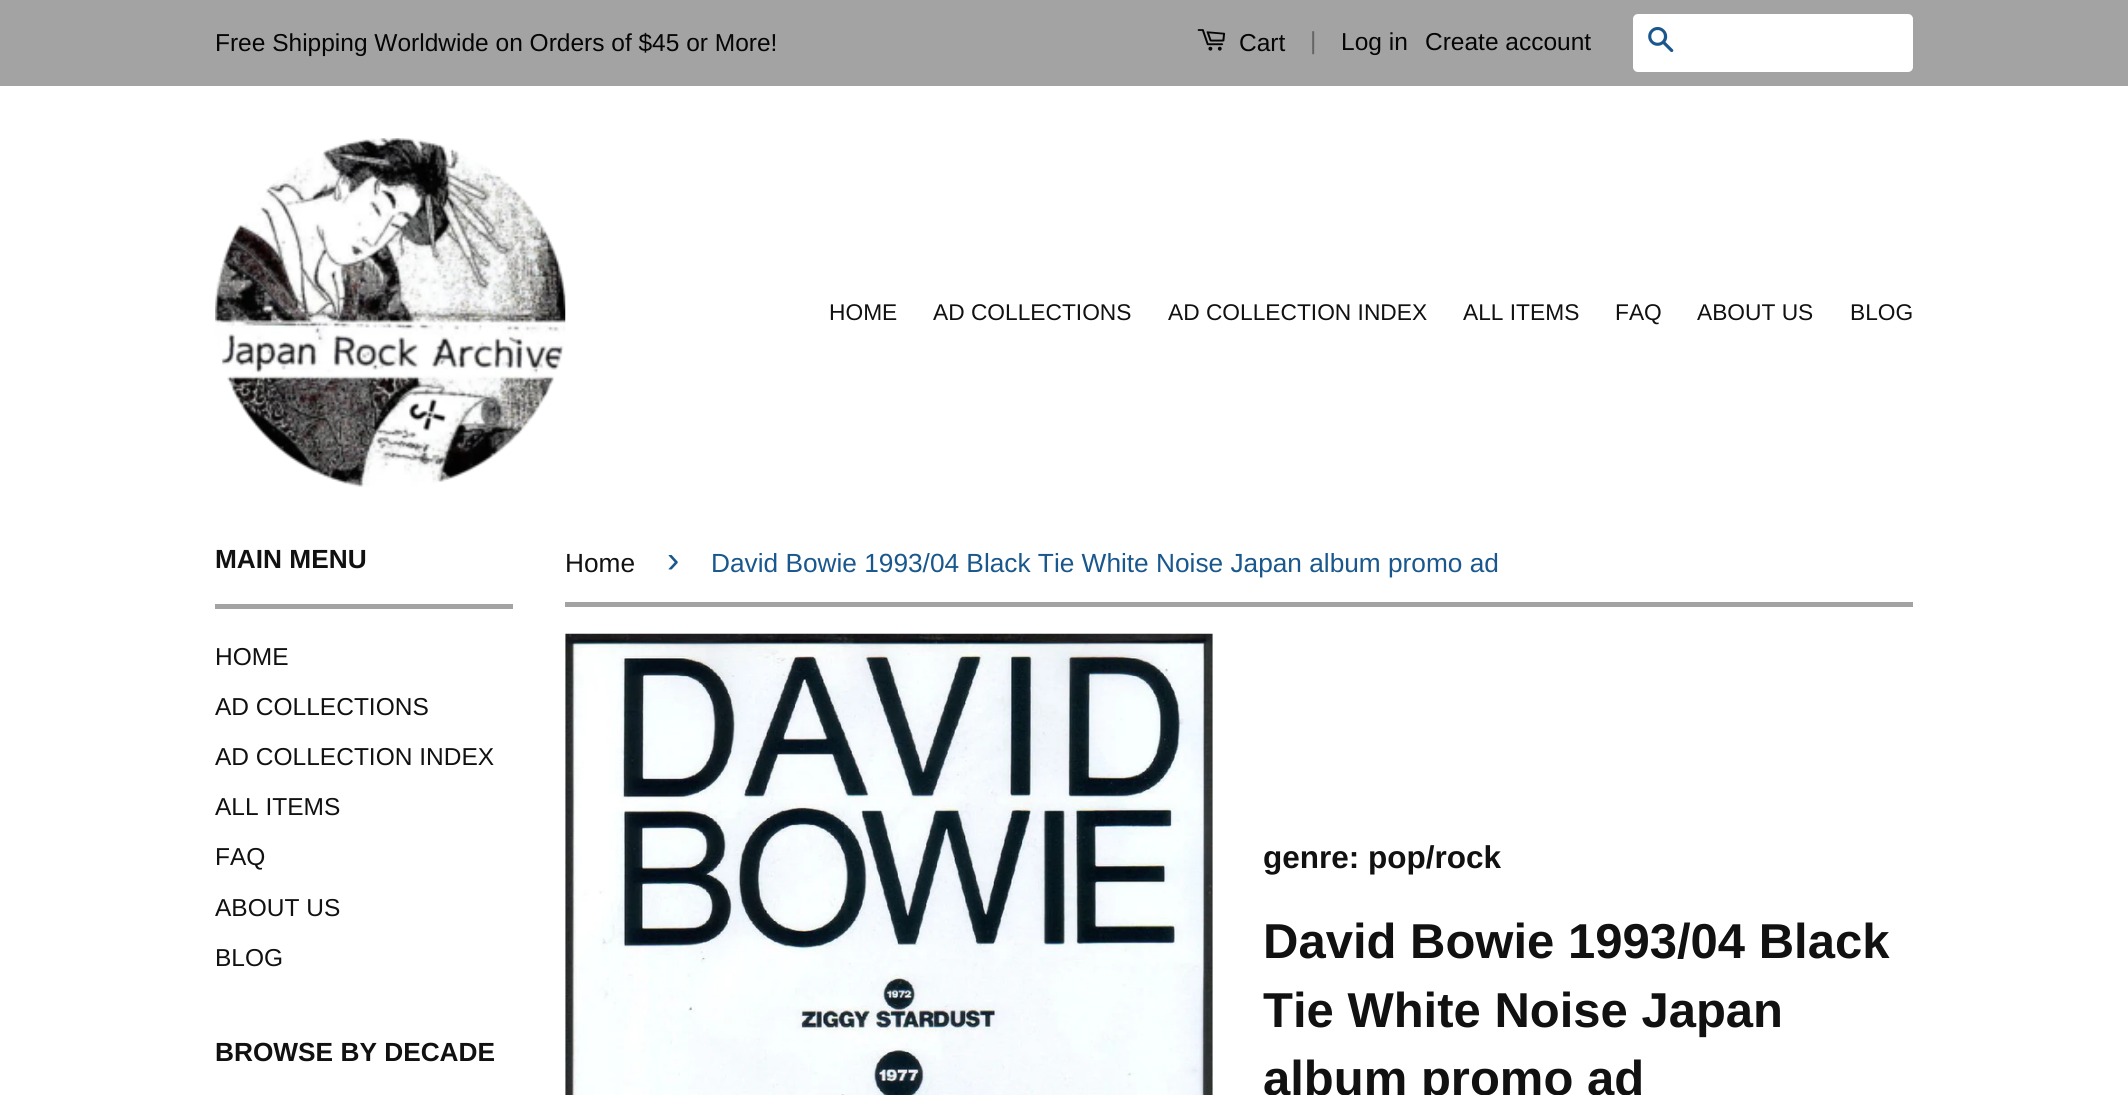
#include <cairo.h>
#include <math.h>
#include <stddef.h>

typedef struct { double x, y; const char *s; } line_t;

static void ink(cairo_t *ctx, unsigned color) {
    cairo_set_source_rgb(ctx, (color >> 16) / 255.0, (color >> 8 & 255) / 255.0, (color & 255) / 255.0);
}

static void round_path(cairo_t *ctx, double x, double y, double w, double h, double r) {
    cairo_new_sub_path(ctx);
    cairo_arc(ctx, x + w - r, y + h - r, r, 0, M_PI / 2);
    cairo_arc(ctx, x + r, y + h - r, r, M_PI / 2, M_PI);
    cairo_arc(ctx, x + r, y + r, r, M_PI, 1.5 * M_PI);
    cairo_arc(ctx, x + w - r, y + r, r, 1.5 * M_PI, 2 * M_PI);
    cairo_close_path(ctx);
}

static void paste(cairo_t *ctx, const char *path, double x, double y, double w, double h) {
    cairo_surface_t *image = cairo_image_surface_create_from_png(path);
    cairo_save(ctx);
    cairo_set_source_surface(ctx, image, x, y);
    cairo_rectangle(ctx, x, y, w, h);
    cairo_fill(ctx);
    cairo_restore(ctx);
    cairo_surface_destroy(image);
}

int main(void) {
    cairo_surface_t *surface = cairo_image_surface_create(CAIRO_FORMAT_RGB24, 2128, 1095);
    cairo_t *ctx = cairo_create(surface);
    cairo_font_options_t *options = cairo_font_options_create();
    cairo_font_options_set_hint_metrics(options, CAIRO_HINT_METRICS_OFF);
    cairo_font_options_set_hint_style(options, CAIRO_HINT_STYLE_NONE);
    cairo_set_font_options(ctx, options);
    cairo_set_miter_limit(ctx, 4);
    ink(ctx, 0xFFFFFF);
    cairo_paint(ctx);
    ink(ctx, 0xA4A3A3);
    cairo_rectangle(ctx, 0, 0, 2128, 86);
    cairo_fill(ctx);
    cairo_select_font_face(ctx, "Liberation Sans", CAIRO_FONT_SLANT_NORMAL, CAIRO_FONT_WEIGHT_NORMAL);
    cairo_set_font_size(ctx, 24.5);
    ink(ctx, 0x050505);
    cairo_move_to(ctx, 215, 51);
    cairo_show_text(ctx, "Free Shipping Worldwide on Orders of $45 or More!");
    paste(ctx, "media/1.png", 1197, 29, 29, 22);
    cairo_move_to(ctx, 1239, 51);
    cairo_show_text(ctx, "Cart");
    ink(ctx, 0x646464);
    cairo_move_to(ctx, 1310, 49);
    cairo_show_text(ctx, "|");
    ink(ctx, 0x050505);
    cairo_move_to(ctx, 1341, 50);
    cairo_show_text(ctx, "Log in");
    cairo_move_to(ctx, 1425, 50);
    cairo_show_text(ctx, "Create account");
    ink(ctx, 0xFFFFFF);
    round_path(ctx, 1633, 14, 280, 58, 5);
    cairo_fill(ctx);
    paste(ctx, "media/2.png", 1648, 27, 26, 26);
    paste(ctx, "media/3.png", 215, 138, 351, 349);
    cairo_set_font_size(ctx, 22.75);
    ink(ctx, 0x111111);
    {
        static const line_t items[] = {
            {829, 320, "HOME"},
            {933, 320, "AD COLLECTIONS"},
            {1168, 320, "AD COLLECTION INDEX"},
            {1463, 320, "ALL ITEMS"},
            {1615, 320, "FAQ"},
            {1697, 320, "ABOUT US"},
            {1850, 320, "BLOG"},
        };
        for (size_t i = 0; i < sizeof items / sizeof *items; i++) {
            cairo_move_to(ctx, items[i].x, items[i].y);
            cairo_show_text(ctx, items[i].s);
        }
    }
    ink(ctx, 0xA4A3A3);
    cairo_rectangle(ctx, 215, 604, 298, 5);
    cairo_fill(ctx);
    cairo_select_font_face(ctx, "Liberation Sans", CAIRO_FONT_SLANT_NORMAL, CAIRO_FONT_WEIGHT_BOLD);
    cairo_set_font_size(ctx, 26.25);
    ink(ctx, 0x111111);
    cairo_move_to(ctx, 215, 568);
    cairo_show_text(ctx, "MAIN MENU");
    cairo_select_font_face(ctx, "Liberation Sans", CAIRO_FONT_SLANT_NORMAL, CAIRO_FONT_WEIGHT_NORMAL);
    cairo_set_font_size(ctx, 24.5);
    {
        static const line_t items[] = {
            {215, 665, "HOME"},
            {215, 715, "AD COLLECTIONS"},
            {215, 765, "AD COLLECTION INDEX"},
            {215, 815, "ALL ITEMS"},
            {215, 865, "FAQ"},
            {215, 916, "ABOUT US"},
            {215, 966, "BLOG"},
        };
        for (size_t i = 0; i < sizeof items / sizeof *items; i++) {
            cairo_move_to(ctx, items[i].x, items[i].y);
            cairo_show_text(ctx, items[i].s);
        }
    }
    cairo_select_font_face(ctx, "Liberation Sans", CAIRO_FONT_SLANT_NORMAL, CAIRO_FONT_WEIGHT_BOLD);
    cairo_set_font_size(ctx, 26.25);
    cairo_move_to(ctx, 215, 1061);
    cairo_show_text(ctx, "BROWSE BY DECADE");
    ink(ctx, 0xA4A3A3);
    cairo_rectangle(ctx, 565, 602, 1348, 5);
    cairo_fill(ctx);
    cairo_select_font_face(ctx, "Liberation Sans", CAIRO_FONT_SLANT_NORMAL, CAIRO_FONT_WEIGHT_NORMAL);
    ink(ctx, 0x111111);
    cairo_move_to(ctx, 565, 572);
    cairo_show_text(ctx, "Home");
    cairo_set_font_size(ctx, 37);
    ink(ctx, 0x19578C);
    cairo_move_to(ctx, 667, 572);
    cairo_show_text(ctx, "›");
    cairo_set_font_size(ctx, 26.25);
    cairo_move_to(ctx, 711, 572);
    cairo_show_text(ctx, "David Bowie 1993/04 Black Tie White Noise Japan album promo ad");
    paste(ctx, "media/4.png", 565, 633, 648, 462);
    cairo_select_font_face(ctx, "Liberation Sans", CAIRO_FONT_SLANT_NORMAL, CAIRO_FONT_WEIGHT_BOLD);
    cairo_set_font_size(ctx, 31.5);
    ink(ctx, 0x111111);
    cairo_move_to(ctx, 1263, 868);
    cairo_show_text(ctx, "genre: pop/rock");
    cairo_set_font_size(ctx, 49);
    {
        static const line_t items[] = {
            {1263, 958, "David Bowie 1993/04 Black"},
            {1263, 1027, "Tie White Noise Japan"},
            {1263, 1095, "album promo ad"},
        };
        for (size_t i = 0; i < sizeof items / sizeof *items; i++) {
            cairo_move_to(ctx, items[i].x, items[i].y);
            cairo_show_text(ctx, items[i].s);
        }
    }
    cairo_surface_write_to_png(surface, "image.png");
    cairo_font_options_destroy(options);
    cairo_destroy(ctx);
    cairo_surface_destroy(surface);
    return 0;
}
